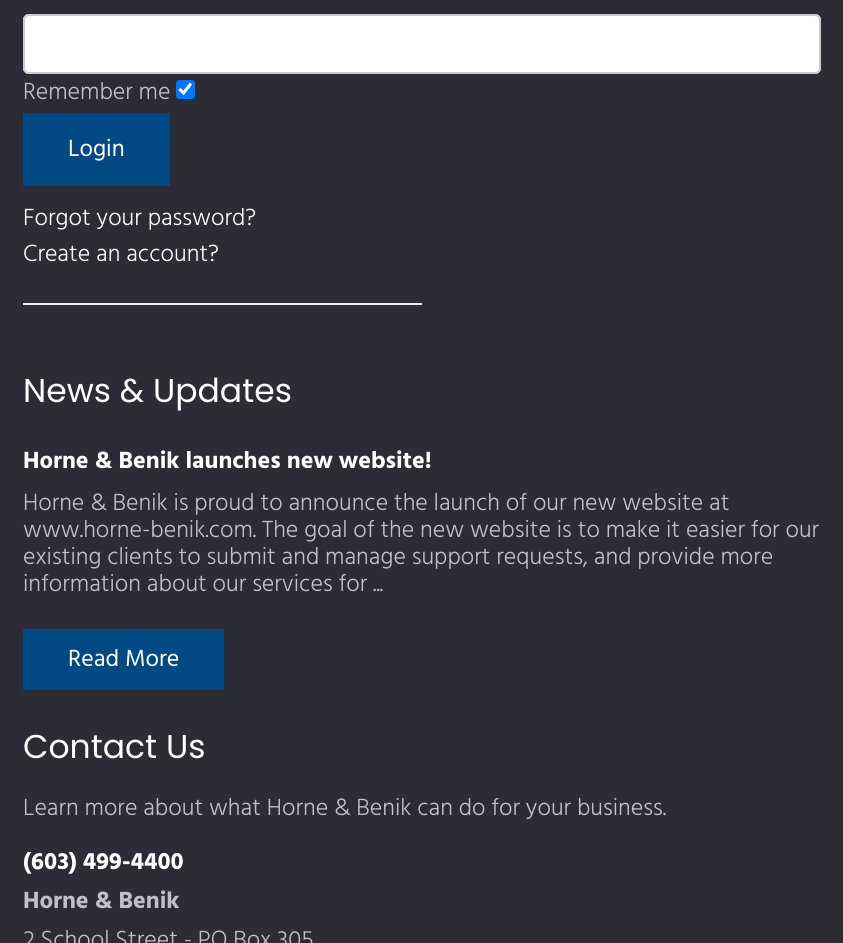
#include <cairo.h>
#include <math.h>
#include <stddef.h>

typedef struct { double x, y; const char *s; } line_t;

static void ink(cairo_t *ctx, unsigned color) {
    cairo_set_source_rgb(ctx, (color >> 16) / 255.0, (color >> 8 & 255) / 255.0, (color & 255) / 255.0);
}

static void round_path(cairo_t *ctx, double x, double y, double w, double h, double r) {
    cairo_new_sub_path(ctx);
    cairo_arc(ctx, x + w - r, y + h - r, r, 0, M_PI / 2);
    cairo_arc(ctx, x + r, y + h - r, r, M_PI / 2, M_PI);
    cairo_arc(ctx, x + r, y + r, r, M_PI, 1.5 * M_PI);
    cairo_arc(ctx, x + w - r, y + r, r, 1.5 * M_PI, 2 * M_PI);
    cairo_close_path(ctx);
}

int main(void) {
    cairo_surface_t *surface = cairo_image_surface_create(CAIRO_FORMAT_RGB24, 843, 943);
    cairo_t *ctx = cairo_create(surface);
    cairo_font_options_t *options = cairo_font_options_create();
    cairo_font_options_set_hint_metrics(options, CAIRO_HINT_METRICS_OFF);
    cairo_font_options_set_hint_style(options, CAIRO_HINT_STYLE_NONE);
    cairo_set_font_options(ctx, options);
    cairo_set_miter_limit(ctx, 4);
    ink(ctx, 0x2B2C36);
    cairo_paint(ctx);
    ink(ctx, 0xFFFFFF);
    round_path(ctx, 23, 14, 798, 60, 6);
    cairo_fill(ctx);
    ink(ctx, 0xECECEC);
    cairo_new_path(ctx);
    cairo_move_to(ctx, 28, 16);
    cairo_line_to(ctx, 814, 16);
    cairo_curve_to(ctx, 817, 16, 819, 19, 819, 21);
    cairo_line_to(ctx, 819, 20);
    cairo_curve_to(ctx, 819, 17, 817, 15, 814, 15);
    cairo_line_to(ctx, 29, 15);
    cairo_curve_to(ctx, 26, 15, 24, 17, 24, 20);
    cairo_line_to(ctx, 24, 21);
    cairo_curve_to(ctx, 24, 19, 26, 16, 28, 16);
    cairo_close_path(ctx);
    cairo_fill(ctx);
    round_path(ctx, 24, 15, 796, 58, 5);
    ink(ctx, 0xCCCCCC);
    cairo_stroke(ctx);
    cairo_select_font_face(ctx, "Hind Light", CAIRO_FONT_SLANT_NORMAL, CAIRO_FONT_WEIGHT_NORMAL);
    cairo_set_font_size(ctx, 24);
    ink(ctx, 0xC0C1C8);
    cairo_move_to(ctx, 23, 99);
    cairo_show_text(ctx, "Remember me");
    ink(ctx, 0x0075FF);
    round_path(ctx, 176, 80, 19, 19, 3);
    cairo_fill(ctx);
    cairo_new_path(ctx);
    cairo_move_to(ctx, 179.5, 89);
    cairo_line_to(ctx, 183.5, 93);
    cairo_line_to(ctx, 191, 83.5);
    ink(ctx, 0xFFFFFF);
    cairo_set_line_width(ctx, 3.1);
    cairo_stroke(ctx);
    ink(ctx, 0x004985);
    cairo_rectangle(ctx, 23, 113, 147, 73);
    cairo_fill(ctx);
    cairo_select_font_face(ctx, "Hind", CAIRO_FONT_SLANT_NORMAL, CAIRO_FONT_WEIGHT_NORMAL);
    ink(ctx, 0xFFFFFF);
    cairo_move_to(ctx, 68, 156);
    cairo_show_text(ctx, "Login");
    cairo_select_font_face(ctx, "Hind Light", CAIRO_FONT_SLANT_NORMAL, CAIRO_FONT_WEIGHT_NORMAL);
    cairo_move_to(ctx, 23, 225);
    cairo_show_text(ctx, "Forgot your password?");
    cairo_move_to(ctx, 23, 261);
    cairo_show_text(ctx, "Create an account?");
    ink(ctx, 0xEEEEEE);
    cairo_rectangle(ctx, 23, 303, 399, 2);
    cairo_fill(ctx);
    cairo_select_font_face(ctx, "Poppins", CAIRO_FONT_SLANT_NORMAL, CAIRO_FONT_WEIGHT_NORMAL);
    cairo_set_font_size(ctx, 33);
    ink(ctx, 0xFFFFFF);
    cairo_move_to(ctx, 23, 402);
    cairo_show_text(ctx, "News & Updates");
    cairo_select_font_face(ctx, "Hind", CAIRO_FONT_SLANT_NORMAL, CAIRO_FONT_WEIGHT_BOLD);
    cairo_set_font_size(ctx, 24);
    cairo_move_to(ctx, 23, 468);
    cairo_show_text(ctx, "Horne & Benik launches new website!");
    cairo_select_font_face(ctx, "Hind Light", CAIRO_FONT_SLANT_NORMAL, CAIRO_FONT_WEIGHT_NORMAL);
    ink(ctx, 0xC0C1C8);
    {
        static const line_t items[] = {
            {23, 510, "Horne & Benik is proud to announce the launch of our new website at"},
            {23, 537, "www.horne-benik.com. The goal of the new website is to make it easier for our"},
            {23, 564, "existing clients to submit and manage support requests, and provide more"},
            {23, 591, "information about our services for ..."},
        };
        for (size_t i = 0; i < sizeof items / sizeof *items; i++) {
            cairo_move_to(ctx, items[i].x, items[i].y);
            cairo_show_text(ctx, items[i].s);
        }
    }
    ink(ctx, 0x004985);
    cairo_rectangle(ctx, 23, 629, 201, 61);
    cairo_fill(ctx);
    cairo_select_font_face(ctx, "Hind", CAIRO_FONT_SLANT_NORMAL, CAIRO_FONT_WEIGHT_NORMAL);
    ink(ctx, 0xFFFFFF);
    cairo_move_to(ctx, 68, 666);
    cairo_show_text(ctx, "Read More");
    cairo_select_font_face(ctx, "Poppins", CAIRO_FONT_SLANT_NORMAL, CAIRO_FONT_WEIGHT_NORMAL);
    cairo_set_font_size(ctx, 33);
    cairo_move_to(ctx, 23, 758);
    cairo_show_text(ctx, "Contact Us");
    cairo_select_font_face(ctx, "Hind Light", CAIRO_FONT_SLANT_NORMAL, CAIRO_FONT_WEIGHT_NORMAL);
    cairo_set_font_size(ctx, 24);
    ink(ctx, 0xC0C1C8);
    cairo_move_to(ctx, 23, 815);
    cairo_show_text(ctx, "Learn more about what Horne & Benik can do for your business.");
    cairo_select_font_face(ctx, "Hind", CAIRO_FONT_SLANT_NORMAL, CAIRO_FONT_WEIGHT_BOLD);
    ink(ctx, 0xFFFFFF);
    cairo_move_to(ctx, 23, 869);
    cairo_show_text(ctx, "(603) 499-4400");
    ink(ctx, 0xC0C1C8);
    cairo_move_to(ctx, 23, 908);
    cairo_show_text(ctx, "Horne & Benik");
    cairo_select_font_face(ctx, "Hind Light", CAIRO_FONT_SLANT_NORMAL, CAIRO_FONT_WEIGHT_NORMAL);
    cairo_move_to(ctx, 23, 947);
    cairo_show_text(ctx, "2 School Street - PO Box 305");
    cairo_surface_write_to_png(surface, "image.png");
    cairo_font_options_destroy(options);
    cairo_destroy(ctx);
    cairo_surface_destroy(surface);
    return 0;
}
